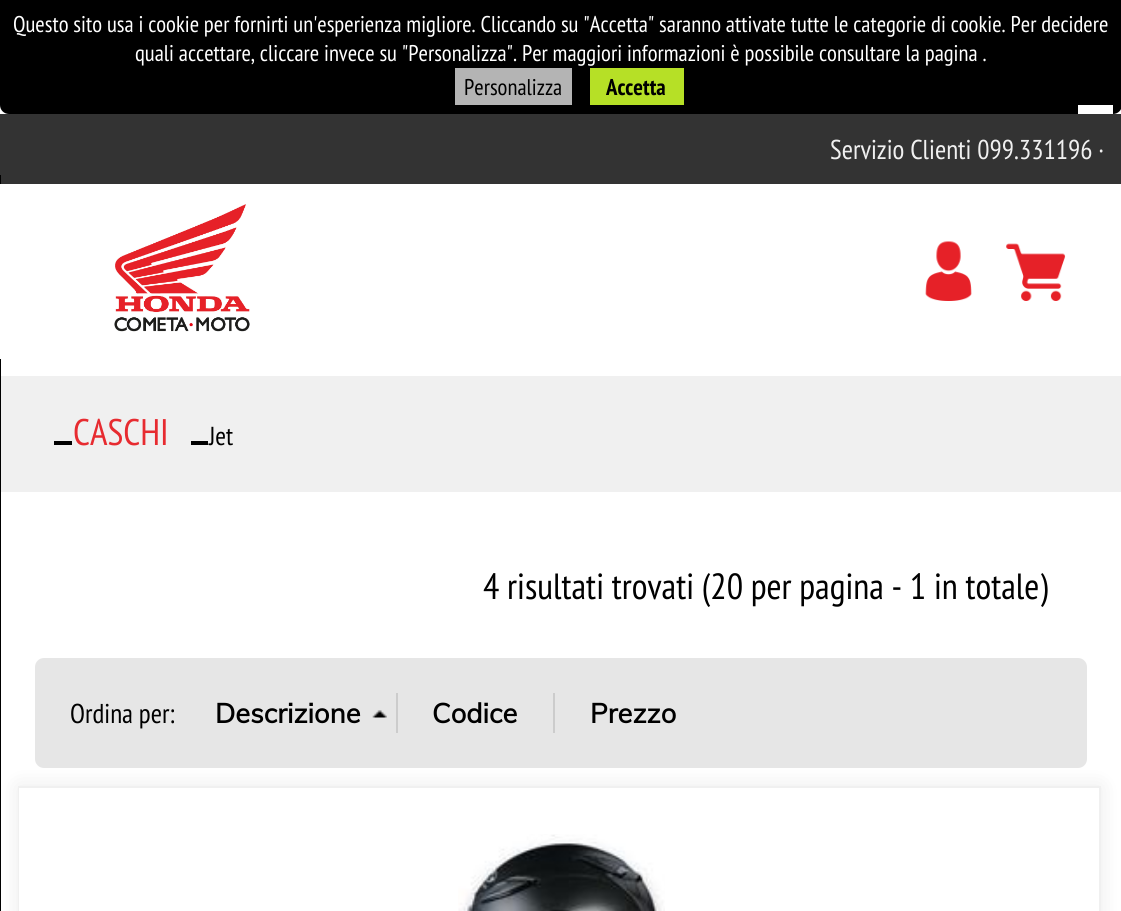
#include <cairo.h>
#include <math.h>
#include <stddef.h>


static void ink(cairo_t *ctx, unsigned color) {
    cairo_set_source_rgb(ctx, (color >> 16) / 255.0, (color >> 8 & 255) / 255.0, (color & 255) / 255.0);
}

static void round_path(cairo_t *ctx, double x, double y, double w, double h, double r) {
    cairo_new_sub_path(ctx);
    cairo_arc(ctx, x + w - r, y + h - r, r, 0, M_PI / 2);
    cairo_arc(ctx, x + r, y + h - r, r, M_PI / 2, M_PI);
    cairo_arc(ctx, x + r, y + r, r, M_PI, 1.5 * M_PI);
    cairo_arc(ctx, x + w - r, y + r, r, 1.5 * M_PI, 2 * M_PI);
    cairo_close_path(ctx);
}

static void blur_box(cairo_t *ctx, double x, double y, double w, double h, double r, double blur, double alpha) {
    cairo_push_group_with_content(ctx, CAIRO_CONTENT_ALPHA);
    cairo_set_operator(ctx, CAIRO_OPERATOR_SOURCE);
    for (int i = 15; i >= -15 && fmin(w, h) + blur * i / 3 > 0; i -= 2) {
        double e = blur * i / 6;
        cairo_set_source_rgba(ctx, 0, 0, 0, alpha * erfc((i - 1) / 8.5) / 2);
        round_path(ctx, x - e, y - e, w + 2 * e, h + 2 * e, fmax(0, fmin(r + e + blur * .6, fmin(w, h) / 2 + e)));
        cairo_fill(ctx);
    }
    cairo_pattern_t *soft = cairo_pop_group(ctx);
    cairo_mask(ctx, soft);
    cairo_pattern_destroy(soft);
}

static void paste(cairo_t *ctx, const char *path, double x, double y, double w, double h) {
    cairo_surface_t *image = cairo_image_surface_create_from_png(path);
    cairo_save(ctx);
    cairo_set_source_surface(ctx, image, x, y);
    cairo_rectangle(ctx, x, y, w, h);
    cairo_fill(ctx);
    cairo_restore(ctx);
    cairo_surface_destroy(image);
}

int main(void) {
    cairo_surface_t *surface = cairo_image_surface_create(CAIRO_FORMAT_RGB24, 1121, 911);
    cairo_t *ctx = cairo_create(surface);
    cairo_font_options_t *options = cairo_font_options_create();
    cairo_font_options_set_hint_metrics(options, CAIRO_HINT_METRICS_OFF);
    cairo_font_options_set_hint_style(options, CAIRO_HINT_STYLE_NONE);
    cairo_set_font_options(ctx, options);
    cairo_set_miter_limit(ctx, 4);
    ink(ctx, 0xFFFFFF);
    cairo_paint(ctx);
    ink(ctx, 0x000000);
    cairo_new_path(ctx);
    cairo_move_to(ctx, 0, 0);
    cairo_line_to(ctx, 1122, 0);
    cairo_line_to(ctx, 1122, 105);
    cairo_curve_to(ctx, 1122, 110, 1118, 114, 1113, 114);
    cairo_line_to(ctx, 9, 114);
    cairo_curve_to(ctx, 4, 114, 0, 110, 0, 105);
    cairo_close_path(ctx);
    cairo_fill(ctx);
    cairo_select_font_face(ctx, "PT Sans Narrow", CAIRO_FONT_SLANT_NORMAL, CAIRO_FONT_WEIGHT_NORMAL);
    cairo_set_font_size(ctx, 22.75);
    ink(ctx, 0xFFFFFF);
    cairo_move_to(ctx, 13, 32);
    cairo_show_text(ctx, "Questo sito usa i cookie per fornirti un'esperienza migliore. Cliccando su \"Accetta\" saranno attivate tutte le categorie di cookie. Per decidere");
    cairo_move_to(ctx, 135, 61);
    cairo_show_text(ctx, "quali accettare, cliccare invece su \"Personalizza\". Per maggiori informazioni è possibile consultare la pagina .");
    ink(ctx, 0xB4B4B4);
    cairo_rectangle(ctx, 455, 68, 117, 37);
    cairo_fill(ctx);
    ink(ctx, 0x000000);
    cairo_move_to(ctx, 464, 95);
    cairo_show_text(ctx, "Personalizza");
    ink(ctx, 0xB6E026);
    cairo_rectangle(ctx, 590, 68, 94, 37);
    cairo_fill(ctx);
    cairo_select_font_face(ctx, "PT Sans Narrow", CAIRO_FONT_SLANT_NORMAL, CAIRO_FONT_WEIGHT_BOLD);
    ink(ctx, 0x000000);
    cairo_move_to(ctx, 606, 95);
    cairo_show_text(ctx, "Accetta");
    ink(ctx, 0xFFFFFF);
    cairo_rectangle(ctx, 1078, 105, 35, 9);
    cairo_fill(ctx);
    ink(ctx, 0x333333);
    cairo_rectangle(ctx, 0, 114, 1121, 70);
    cairo_fill(ctx);
    cairo_select_font_face(ctx, "PT Sans Narrow", CAIRO_FONT_SLANT_NORMAL, CAIRO_FONT_WEIGHT_NORMAL);
    cairo_set_font_size(ctx, 27.25);
    ink(ctx, 0xF0F0F0);
    cairo_move_to(ctx, 830, 159);
    cairo_show_text(ctx, "Servizio Clienti 099.331196 ·");
    ink(ctx, 0xE6E6E6);
    round_path(ctx, 35, 658, 1052, 110, 9);
    cairo_fill(ctx);
    ink(ctx, 0x000000);
    blur_box(ctx, 18, 786, 1083, 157, 0, 10.5, 0.08);
    ink(ctx, 0x000000);
    cairo_rectangle(ctx, 0, 175, 1, 736);
    cairo_fill(ctx);
    ink(ctx, 0xFFFFFF);
    cairo_rectangle(ctx, 0, 184, 1, 175);
    cairo_fill(ctx);
    paste(ctx, "media/1.png", 114, 204, 136, 128);
    paste(ctx, "media/2.png", 925, 241, 47, 60);
    paste(ctx, "media/3.png", 1006, 243, 60, 58);
    ink(ctx, 0xF0F0F0);
    cairo_rectangle(ctx, 1, 376, 1120, 116);
    cairo_fill(ctx);
    ink(ctx, 0x000000);
    cairo_rectangle(ctx, 54, 441, 18, 4);
    cairo_fill(ctx);
    cairo_set_font_size(ctx, 37);
    ink(ctx, 0xE72B30);
    cairo_move_to(ctx, 73, 445);
    cairo_show_text(ctx, "CASCHI");
    ink(ctx, 0x000000);
    cairo_rectangle(ctx, 191, 441, 17, 4);
    cairo_fill(ctx);
    cairo_set_font_size(ctx, 26);
    cairo_move_to(ctx, 209, 445);
    cairo_show_text(ctx, "Jet");
    cairo_set_font_size(ctx, 36.4);
    cairo_move_to(ctx, 483, 599);
    cairo_show_text(ctx, "4 risultati trovati (20 per pagina - 1 in totale)");
    cairo_set_font_size(ctx, 27.25);
    cairo_move_to(ctx, 70, 723);
    cairo_show_text(ctx, "Ordina per:");
    paste(ctx, "media/4.png", 372, 710, 15, 8);
    ink(ctx, 0xCCCCCC);
    cairo_rectangle(ctx, 396, 693, 2, 40);
    cairo_fill(ctx);
    cairo_select_font_face(ctx, "Muli", CAIRO_FONT_SLANT_NORMAL, CAIRO_FONT_WEIGHT_BOLD);
    ink(ctx, 0x000000);
    cairo_move_to(ctx, 215, 723);
    cairo_show_text(ctx, "Descrizione");
    ink(ctx, 0xCCCCCC);
    cairo_rectangle(ctx, 553, 693, 2, 40);
    cairo_fill(ctx);
    ink(ctx, 0x000000);
    cairo_move_to(ctx, 432, 723);
    cairo_show_text(ctx, "Codice");
    cairo_move_to(ctx, 590, 723);
    cairo_show_text(ctx, "Prezzo");
    cairo_rectangle(ctx, 19, 787, 1081, 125);
    ink(ctx, 0xF0F0F0);
    cairo_stroke(ctx);
    ink(ctx, 0xFFFFFF);
    cairo_rectangle(ctx, 19, 788, 1080, 123);
    cairo_fill(ctx);
    paste(ctx, "media/5.png", 458, 834, 207, 77);
    cairo_surface_write_to_png(surface, "image.png");
    cairo_font_options_destroy(options);
    cairo_destroy(ctx);
    cairo_surface_destroy(surface);
    return 0;
}
